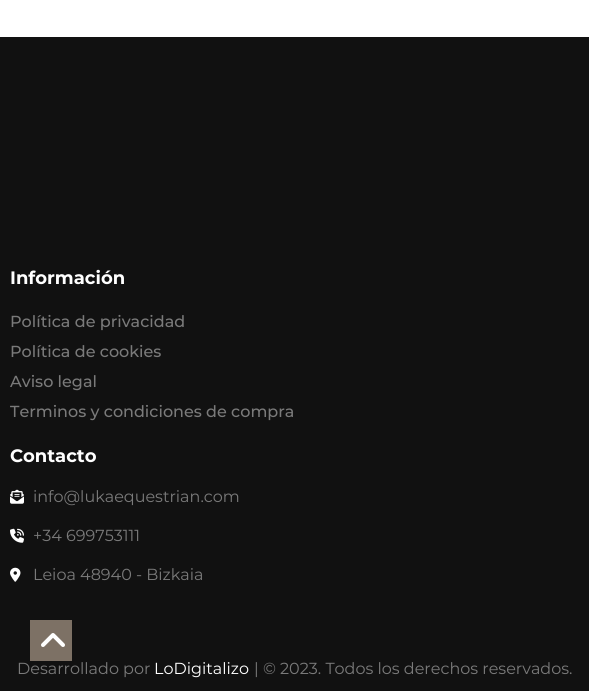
#include <cairo.h>
#include <math.h>
#include <stddef.h>

typedef struct { double x, y; const char *s; } line_t;

static void ink(cairo_t *ctx, unsigned color) {
    cairo_set_source_rgb(ctx, (color >> 16) / 255.0, (color >> 8 & 255) / 255.0, (color & 255) / 255.0);
}

static void paste(cairo_t *ctx, const char *path, double x, double y, double w, double h) {
    cairo_surface_t *image = cairo_image_surface_create_from_png(path);
    cairo_save(ctx);
    cairo_set_source_surface(ctx, image, x, y);
    cairo_rectangle(ctx, x, y, w, h);
    cairo_fill(ctx);
    cairo_restore(ctx);
    cairo_surface_destroy(image);
}

int main(void) {
    cairo_surface_t *surface = cairo_image_surface_create(CAIRO_FORMAT_RGB24, 589, 691);
    cairo_t *ctx = cairo_create(surface);
    cairo_font_options_t *options = cairo_font_options_create();
    cairo_font_options_set_hint_metrics(options, CAIRO_HINT_METRICS_OFF);
    cairo_font_options_set_hint_style(options, CAIRO_HINT_STYLE_NONE);
    cairo_set_font_options(ctx, options);
    cairo_set_miter_limit(ctx, 4);
    ink(ctx, 0xFFFFFF);
    cairo_paint(ctx);
    ink(ctx, 0x111111);
    cairo_rectangle(ctx, 0, 37, 589, 654);
    cairo_fill(ctx);
    cairo_select_font_face(ctx, "Montserrat", CAIRO_FONT_SLANT_NORMAL, CAIRO_FONT_WEIGHT_BOLD);
    cairo_set_font_size(ctx, 18);
    ink(ctx, 0xFFFFFF);
    cairo_move_to(ctx, 10, 284);
    cairo_show_text(ctx, "Información");
    cairo_select_font_face(ctx, "Montserrat Medium", CAIRO_FONT_SLANT_NORMAL, CAIRO_FONT_WEIGHT_NORMAL);
    cairo_set_font_size(ctx, 16);
    ink(ctx, 0x7A7A7A);
    {
        static const line_t items[] = {
            {10, 327, "Política de privacidad"},
            {10, 357, "Política de cookies"},
            {10, 387, "Aviso legal"},
            {10, 417, "Terminos y condiciones de compra"},
        };
        for (size_t i = 0; i < sizeof items / sizeof *items; i++) {
            cairo_move_to(ctx, items[i].x, items[i].y);
            cairo_show_text(ctx, items[i].s);
        }
    }
    cairo_select_font_face(ctx, "Montserrat", CAIRO_FONT_SLANT_NORMAL, CAIRO_FONT_WEIGHT_BOLD);
    cairo_set_font_size(ctx, 18);
    ink(ctx, 0xFFFFFF);
    cairo_move_to(ctx, 10, 462);
    cairo_show_text(ctx, "Contacto");
    paste(ctx, "media/1.png", 10, 489, 14, 15);
    cairo_select_font_face(ctx, "Montserrat", CAIRO_FONT_SLANT_NORMAL, CAIRO_FONT_WEIGHT_NORMAL);
    cairo_set_font_size(ctx, 16);
    ink(ctx, 0x7A7A7A);
    cairo_move_to(ctx, 33, 502);
    cairo_show_text(ctx, "info@lukaequestrian.com");
    paste(ctx, "media/2.png", 10, 528, 14, 15);
    cairo_move_to(ctx, 33, 541);
    cairo_show_text(ctx, "+34 699753111");
    paste(ctx, "media/3.png", 10, 567, 11, 15);
    cairo_move_to(ctx, 33, 580);
    cairo_show_text(ctx, "Leioa 48940 - Bizkaia");
    ink(ctx, 0x7D7165);
    cairo_rectangle(ctx, 30, 620, 42, 41);
    cairo_fill(ctx);
    paste(ctx, "media/4.png", 41, 633, 24, 14);
    ink(ctx, 0x7A7A7A);
    cairo_move_to(ctx, 17, 674);
    cairo_show_text(ctx, "Desarrollado por");
    ink(ctx, 0xFFFFFF);
    cairo_move_to(ctx, 154, 674);
    cairo_show_text(ctx, "LoDigitalizo");
    ink(ctx, 0x7A7A7A);
    cairo_move_to(ctx, 254, 674);
    cairo_show_text(ctx, "| © 2023. Todos los derechos reservados.");
    cairo_surface_write_to_png(surface, "image.png");
    cairo_font_options_destroy(options);
    cairo_destroy(ctx);
    cairo_surface_destroy(surface);
    return 0;
}
